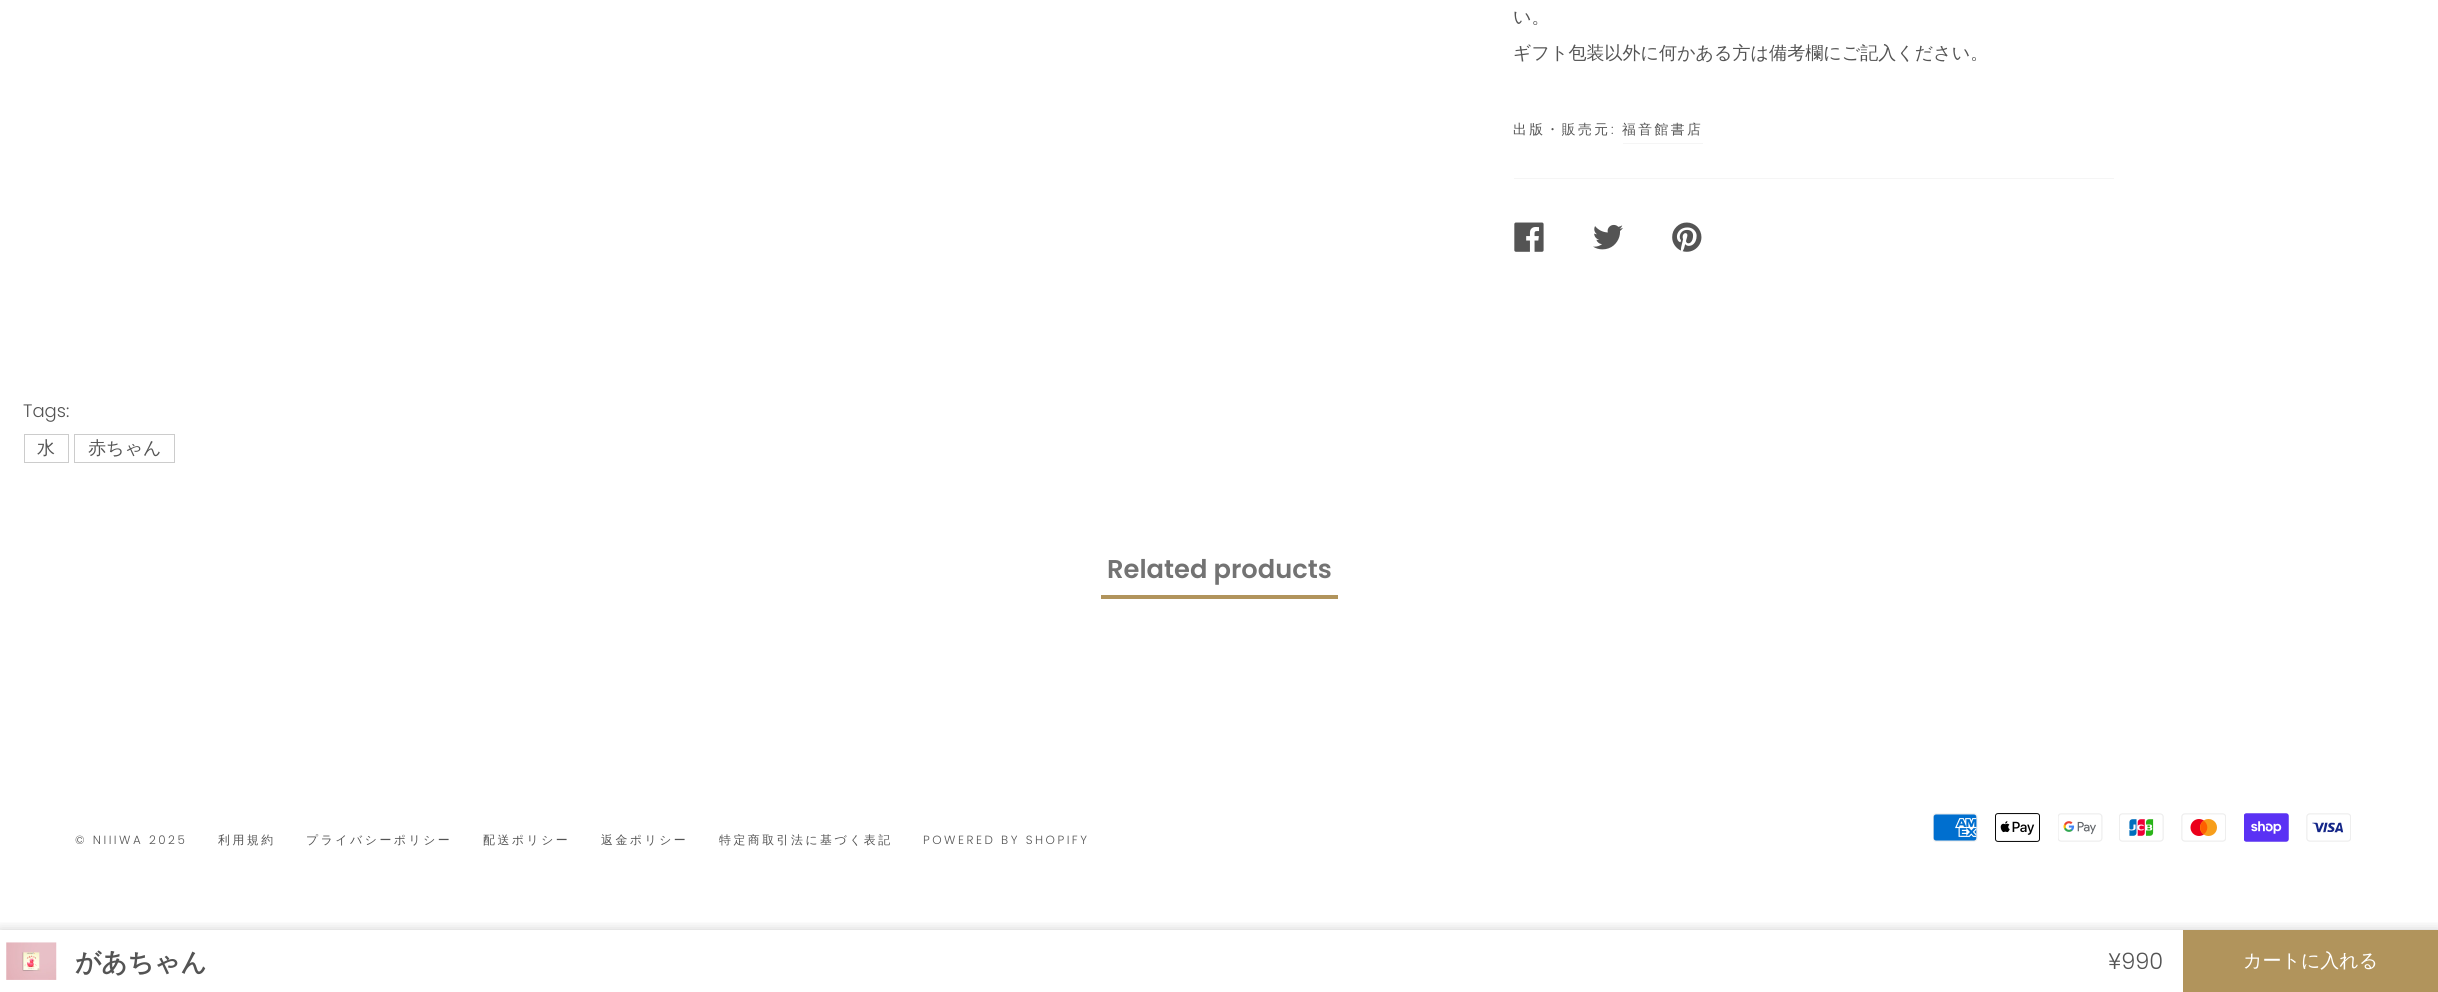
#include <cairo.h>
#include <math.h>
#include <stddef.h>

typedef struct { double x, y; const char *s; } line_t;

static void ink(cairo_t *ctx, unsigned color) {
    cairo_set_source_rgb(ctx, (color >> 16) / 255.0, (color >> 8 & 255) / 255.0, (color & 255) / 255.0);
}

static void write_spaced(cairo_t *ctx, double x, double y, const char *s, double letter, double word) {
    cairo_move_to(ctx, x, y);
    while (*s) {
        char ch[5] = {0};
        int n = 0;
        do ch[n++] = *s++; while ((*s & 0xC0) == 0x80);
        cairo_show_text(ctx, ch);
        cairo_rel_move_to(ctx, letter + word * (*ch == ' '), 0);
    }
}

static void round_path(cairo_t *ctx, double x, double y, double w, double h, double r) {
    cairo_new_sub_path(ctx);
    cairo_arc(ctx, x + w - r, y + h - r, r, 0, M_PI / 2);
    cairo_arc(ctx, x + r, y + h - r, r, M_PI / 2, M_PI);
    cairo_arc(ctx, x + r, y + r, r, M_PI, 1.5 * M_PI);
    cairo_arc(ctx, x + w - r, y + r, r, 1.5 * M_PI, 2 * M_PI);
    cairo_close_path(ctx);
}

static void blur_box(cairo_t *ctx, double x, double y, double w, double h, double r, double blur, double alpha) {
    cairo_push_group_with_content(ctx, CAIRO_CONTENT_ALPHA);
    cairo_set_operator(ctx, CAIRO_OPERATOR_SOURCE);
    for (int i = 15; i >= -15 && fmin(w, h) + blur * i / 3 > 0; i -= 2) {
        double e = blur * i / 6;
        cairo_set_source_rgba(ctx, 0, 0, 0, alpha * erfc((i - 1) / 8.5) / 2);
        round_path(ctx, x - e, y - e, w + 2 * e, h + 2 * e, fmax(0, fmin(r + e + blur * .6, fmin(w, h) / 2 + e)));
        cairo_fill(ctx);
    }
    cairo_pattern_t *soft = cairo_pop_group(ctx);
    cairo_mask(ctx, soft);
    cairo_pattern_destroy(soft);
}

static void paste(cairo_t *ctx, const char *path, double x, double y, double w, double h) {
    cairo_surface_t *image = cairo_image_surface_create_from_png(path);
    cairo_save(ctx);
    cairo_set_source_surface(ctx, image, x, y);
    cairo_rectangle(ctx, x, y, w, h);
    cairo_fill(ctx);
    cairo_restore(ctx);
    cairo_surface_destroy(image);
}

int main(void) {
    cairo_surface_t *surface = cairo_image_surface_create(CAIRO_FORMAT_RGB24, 2438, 992);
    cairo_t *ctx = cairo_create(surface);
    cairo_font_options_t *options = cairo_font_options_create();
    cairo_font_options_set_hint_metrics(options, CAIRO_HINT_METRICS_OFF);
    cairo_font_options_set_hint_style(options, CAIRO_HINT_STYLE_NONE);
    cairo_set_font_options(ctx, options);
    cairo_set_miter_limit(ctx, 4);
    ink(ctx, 0xFFFFFF);
    cairo_paint(ctx);
    cairo_select_font_face(ctx, "WenQuanYi Zen Hei Medium", CAIRO_FONT_SLANT_NORMAL, CAIRO_FONT_WEIGHT_NORMAL);
    cairo_set_font_size(ctx, 18.05);
    ink(ctx, 0x545454);
    cairo_move_to(ctx, 1513, 23);
    cairo_show_text(ctx, "い。");
    cairo_move_to(ctx, 1513, 59);
    cairo_show_text(ctx, "ギフト包装以外に何かある方は備考欄にご記入ください。");
    cairo_set_font_size(ctx, 13.75);
    write_spaced(ctx, 1513, 134, "出版・販売元", 2.5, 0);
    cairo_select_font_face(ctx, "Poppins Light", CAIRO_FONT_SLANT_NORMAL, CAIRO_FONT_WEIGHT_NORMAL);
    write_spaced(ctx, 1611, 134, ":", 2.5, 0);
    cairo_select_font_face(ctx, "WenQuanYi Zen Hei Medium", CAIRO_FONT_SLANT_NORMAL, CAIRO_FONT_WEIGHT_NORMAL);
    write_spaced(ctx, 1622, 134, "福音館書店", 2.5, 0);
    ink(ctx, 0xF5F5F5);
    cairo_rectangle(ctx, 1623, 143, 80, 1);
    cairo_fill(ctx);
    cairo_rectangle(ctx, 1514, 178, 600, 1);
    cairo_fill(ctx);
    paste(ctx, "media/1.png", 1514, 222, 30, 30);
    paste(ctx, "media/2.png", 1593, 224, 30, 26);
    paste(ctx, "media/3.png", 1672, 222, 30, 30);
    cairo_select_font_face(ctx, "Poppins Light", CAIRO_FONT_SLANT_NORMAL, CAIRO_FONT_WEIGHT_NORMAL);
    cairo_set_font_size(ctx, 18.05);
    ink(ctx, 0x545454);
    cairo_move_to(ctx, 23, 417);
    cairo_show_text(ctx, "Tags:");
    cairo_rectangle(ctx, 24.5, 434.5, 44, 28);
    ink(ctx, 0xCCCCCC);
    cairo_set_line_width(ctx, 1);
    cairo_stroke(ctx);
    cairo_select_font_face(ctx, "WenQuanYi Zen Hei Medium", CAIRO_FONT_SLANT_NORMAL, CAIRO_FONT_WEIGHT_NORMAL);
    ink(ctx, 0x545454);
    cairo_move_to(ctx, 37, 454);
    cairo_show_text(ctx, "水");
    cairo_rectangle(ctx, 74.5, 434.5, 100, 28);
    ink(ctx, 0xCCCCCC);
    cairo_stroke(ctx);
    ink(ctx, 0x545454);
    cairo_move_to(ctx, 88, 454);
    cairo_show_text(ctx, "赤ちゃん");
    cairo_save(ctx);
    cairo_rectangle(ctx, 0, 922, 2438, 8);
    cairo_clip(ctx);
    ink(ctx, 0x000000);
    blur_box(ctx, 0, 930, 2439, 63, 0, 6, 0.2);
    cairo_restore(ctx);
    paste(ctx, "media/4.png", 6, 942, 51, 38);
    cairo_select_font_face(ctx, "WenQuanYi Zen Hei", CAIRO_FONT_SLANT_NORMAL, CAIRO_FONT_WEIGHT_BOLD);
    cairo_set_font_size(ctx, 25.75);
    cairo_move_to(ctx, 75, 971);
    cairo_show_text(ctx, "があちゃん");
    cairo_select_font_face(ctx, "Poppins Light", CAIRO_FONT_SLANT_NORMAL, CAIRO_FONT_WEIGHT_NORMAL);
    cairo_set_font_size(ctx, 22.5);
    cairo_move_to(ctx, 2108, 969);
    cairo_show_text(ctx, "¥990");
    ink(ctx, 0xB1945C);
    cairo_rectangle(ctx, 2183, 930, 255, 62);
    cairo_fill(ctx);
    cairo_select_font_face(ctx, "WenQuanYi Zen Hei Medium", CAIRO_FONT_SLANT_NORMAL, CAIRO_FONT_WEIGHT_NORMAL);
    cairo_set_font_size(ctx, 19);
    ink(ctx, 0xFFFFFF);
    cairo_move_to(ctx, 2243, 967);
    cairo_show_text(ctx, "カートに入れる");
    ink(ctx, 0xB1945C);
    cairo_rectangle(ctx, 1101, 595, 237, 4);
    cairo_fill(ctx);
    cairo_select_font_face(ctx, "Poppins SemiBold", CAIRO_FONT_SLANT_NORMAL, CAIRO_FONT_WEIGHT_NORMAL);
    cairo_set_font_size(ctx, 25.75);
    ink(ctx, 0x737373);
    cairo_move_to(ctx, 1107, 578);
    cairo_show_text(ctx, "Related products");
    cairo_select_font_face(ctx, "Poppins Light", CAIRO_FONT_SLANT_NORMAL, CAIRO_FONT_WEIGHT_NORMAL);
    cairo_set_font_size(ctx, 11.9);
    ink(ctx, 0x545454);
    write_spaced(ctx, 75, 844, "© NIIIWA 2025", 2.5, 0);
    cairo_select_font_face(ctx, "WenQuanYi Zen Hei Medium", CAIRO_FONT_SLANT_NORMAL, CAIRO_FONT_WEIGHT_NORMAL);
    {
        static const line_t items[] = {
            {218, 844, "利用規約"},
            {306, 844, "プライバシーポリシー"},
            {483, 844, "配送ポリシー"},
            {601, 844, "返金ポリシー"},
            {719, 844, "特定商取引法に基づく表記"},
        };
        for (size_t i = 0; i < sizeof items / sizeof *items; i++) {
            write_spaced(ctx, items[i].x, items[i].y, items[i].s, 2.5, 0);
        }
    }
    cairo_select_font_face(ctx, "Poppins Light", CAIRO_FONT_SLANT_NORMAL, CAIRO_FONT_WEIGHT_NORMAL);
    write_spaced(ctx, 923, 844, "POWERED BY SHOPIFY", 2.5, 0);
    paste(ctx, "media/5.png", 1933, 813, 45, 29);
    paste(ctx, "media/6.png", 1995, 813, 45, 29);
    paste(ctx, "media/7.png", 2058, 813, 45, 29);
    paste(ctx, "media/8.png", 2119, 813, 45, 29);
    paste(ctx, "media/9.png", 2181, 813, 45, 29);
    paste(ctx, "media/10.png", 2244, 813, 45, 29);
    paste(ctx, "media/11.png", 2306, 813, 45, 29);
    cairo_surface_write_to_png(surface, "image.png");
    cairo_font_options_destroy(options);
    cairo_destroy(ctx);
    cairo_surface_destroy(surface);
    return 0;
}
